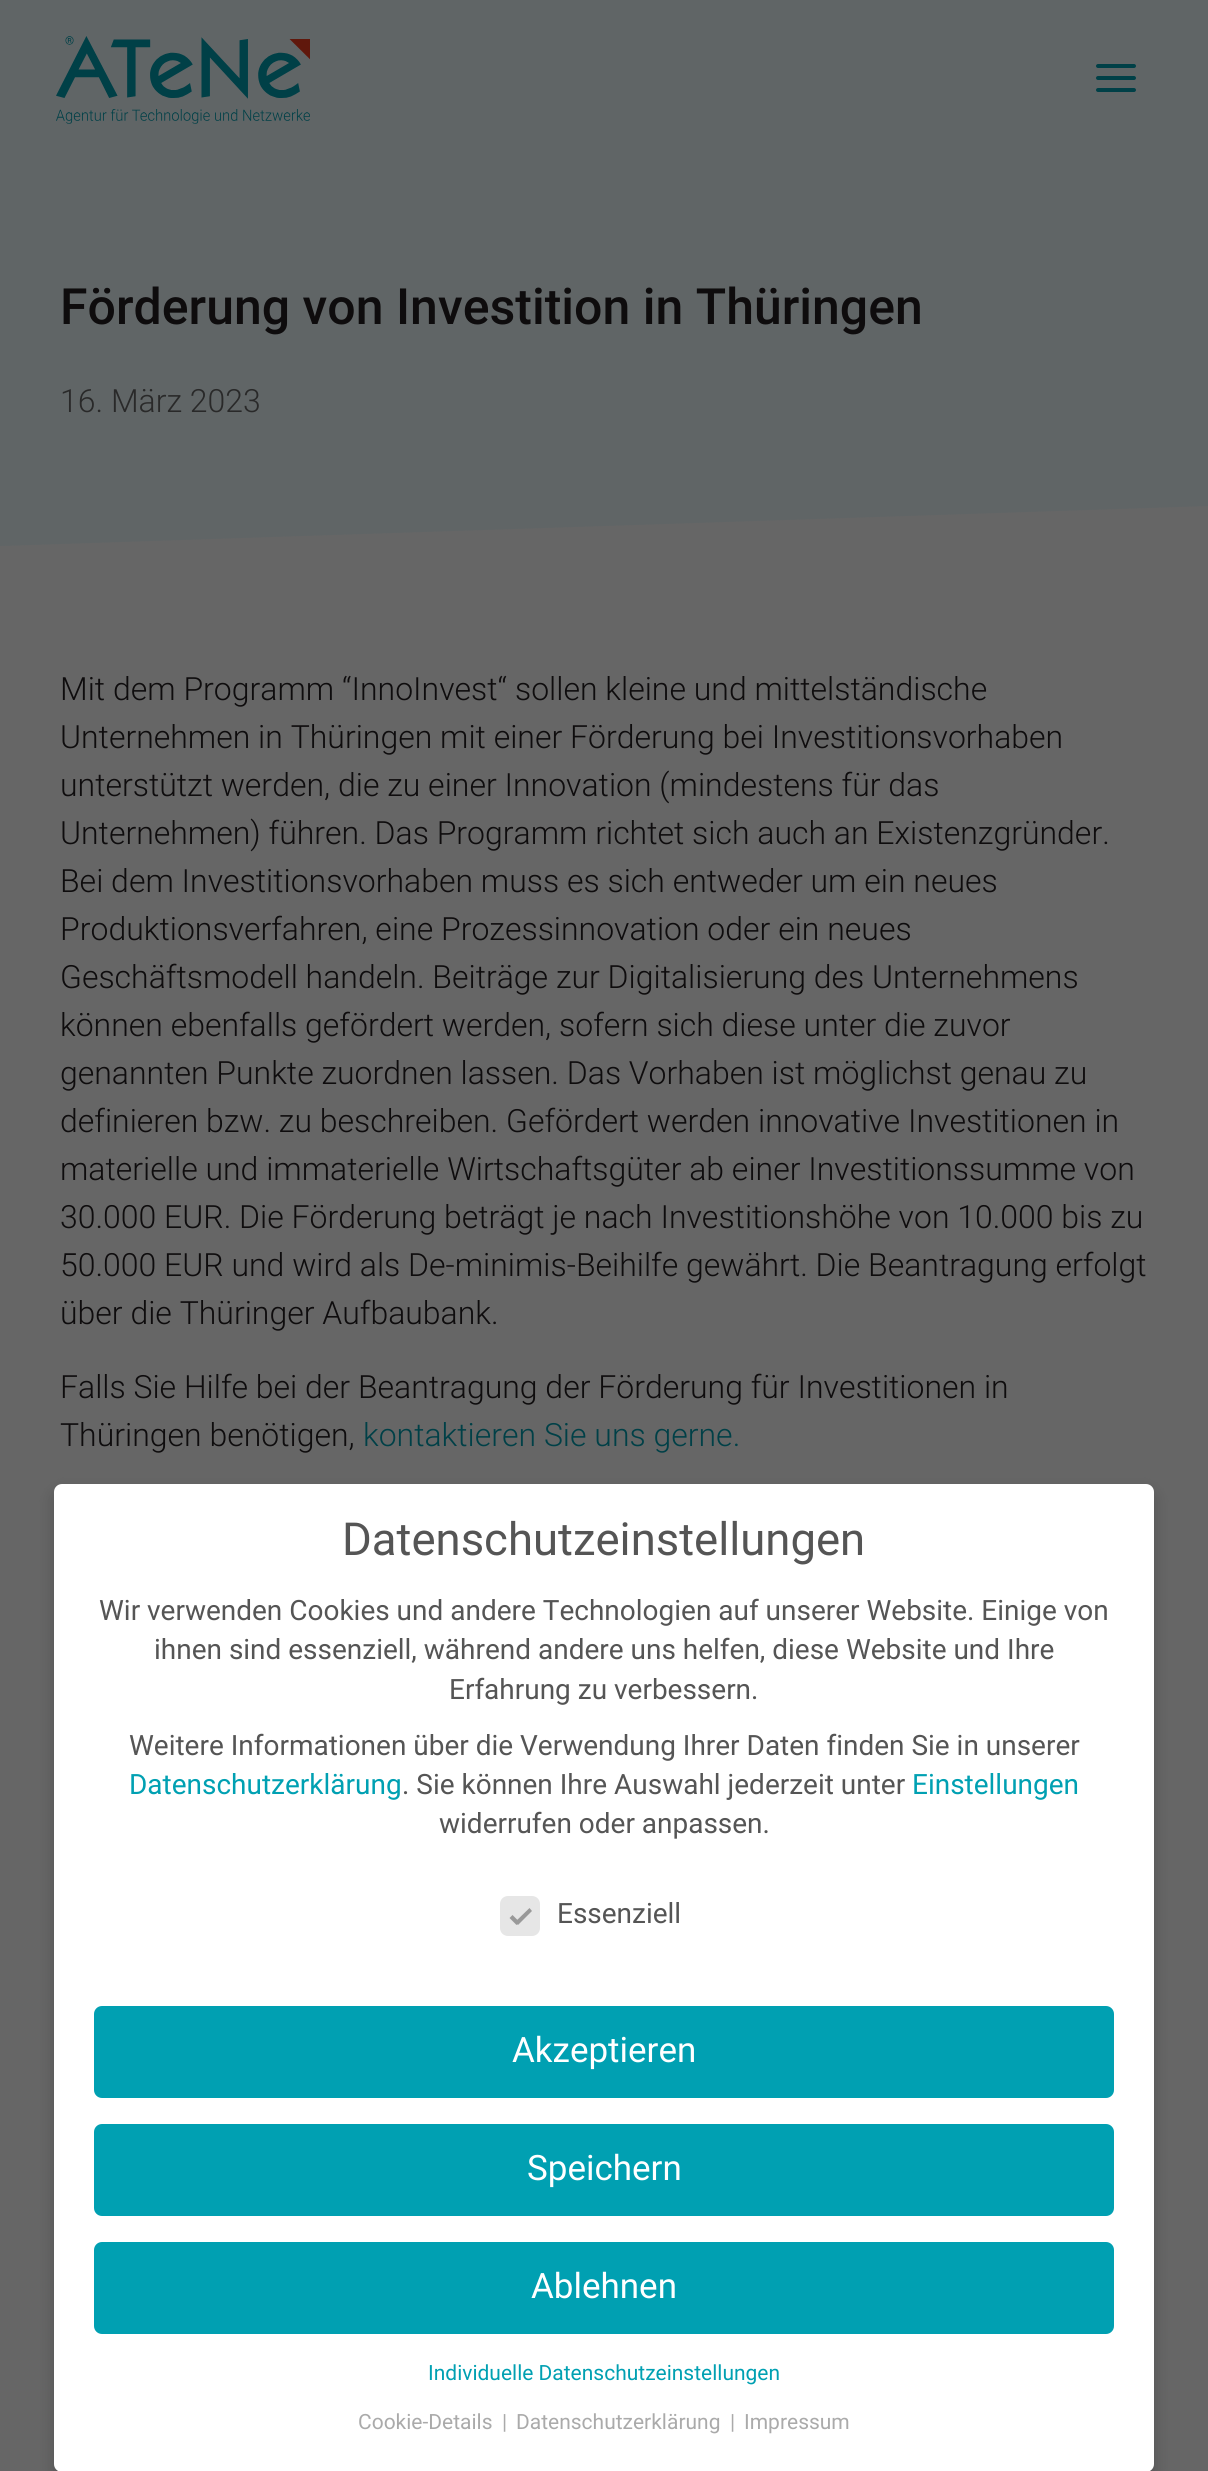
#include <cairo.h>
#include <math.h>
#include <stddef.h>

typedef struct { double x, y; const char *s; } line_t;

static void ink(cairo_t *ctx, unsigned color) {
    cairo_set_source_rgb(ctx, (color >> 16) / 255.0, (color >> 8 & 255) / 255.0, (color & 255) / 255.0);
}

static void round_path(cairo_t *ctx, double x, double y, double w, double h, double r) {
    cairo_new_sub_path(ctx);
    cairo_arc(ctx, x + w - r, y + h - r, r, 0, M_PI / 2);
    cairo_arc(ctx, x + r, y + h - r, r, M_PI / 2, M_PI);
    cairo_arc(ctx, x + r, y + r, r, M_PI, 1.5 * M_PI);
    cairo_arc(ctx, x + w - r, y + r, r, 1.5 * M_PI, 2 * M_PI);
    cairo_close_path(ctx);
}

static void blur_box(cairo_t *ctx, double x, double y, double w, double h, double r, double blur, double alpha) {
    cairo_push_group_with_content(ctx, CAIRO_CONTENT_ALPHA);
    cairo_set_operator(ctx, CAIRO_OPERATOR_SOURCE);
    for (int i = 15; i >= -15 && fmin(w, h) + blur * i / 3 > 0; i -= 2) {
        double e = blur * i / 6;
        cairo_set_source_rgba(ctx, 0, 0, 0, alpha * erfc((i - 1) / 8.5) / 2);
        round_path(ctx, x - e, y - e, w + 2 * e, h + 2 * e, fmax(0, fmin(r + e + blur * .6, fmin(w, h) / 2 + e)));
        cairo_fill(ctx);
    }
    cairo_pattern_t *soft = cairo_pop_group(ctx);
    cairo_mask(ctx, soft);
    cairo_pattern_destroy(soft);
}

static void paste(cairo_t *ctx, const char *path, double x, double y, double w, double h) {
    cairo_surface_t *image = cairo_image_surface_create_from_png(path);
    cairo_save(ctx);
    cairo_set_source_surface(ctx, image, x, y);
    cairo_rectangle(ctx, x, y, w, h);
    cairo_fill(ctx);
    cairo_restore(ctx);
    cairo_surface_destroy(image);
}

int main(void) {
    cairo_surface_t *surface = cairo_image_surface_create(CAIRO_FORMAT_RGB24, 1208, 2471);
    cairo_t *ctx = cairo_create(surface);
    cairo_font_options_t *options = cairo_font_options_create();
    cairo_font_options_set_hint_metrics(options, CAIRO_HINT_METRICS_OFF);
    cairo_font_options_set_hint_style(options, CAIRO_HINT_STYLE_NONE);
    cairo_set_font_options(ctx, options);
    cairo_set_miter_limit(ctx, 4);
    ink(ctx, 0x666666);
    cairo_paint(ctx);
    ink(ctx, 0x606566);
    cairo_rectangle(ctx, 0, 0, 1208, 546);
    cairo_fill(ctx);
    paste(ctx, "media/1.png", 56, 36, 254, 88);
    paste(ctx, "media/2.png", 1096, 64, 40, 28);
    cairo_select_font_face(ctx, "Roboto Medium", CAIRO_FONT_SLANT_NORMAL, CAIRO_FONT_WEIGHT_NORMAL);
    cairo_set_font_size(ctx, 50);
    ink(ctx, 0x0E0C0D);
    cairo_move_to(ctx, 60, 324);
    cairo_show_text(ctx, "Förderung von Investition in Thüringen");
    cairo_select_font_face(ctx, "Roboto Light", CAIRO_FONT_SLANT_NORMAL, CAIRO_FONT_WEIGHT_NORMAL);
    cairo_set_font_size(ctx, 32);
    ink(ctx, 0x292929);
    cairo_move_to(ctx, 60, 412);
    cairo_show_text(ctx, "16. März 2023");
    ink(ctx, 0x666666);
    cairo_new_path(ctx);
    cairo_move_to(ctx, 1208, 506);
    cairo_line_to(ctx, 1208, 546);
    cairo_line_to(ctx, 0, 546);
    cairo_close_path(ctx);
    cairo_fill(ctx);
    ink(ctx, 0x0E0C0D);
    {
        static const line_t items[] = {
            {60, 700, "Mit dem Programm “InnoInvest“ sollen kleine und mittelständische"},
            {60, 748, "Unternehmen in Thüringen mit einer Förderung bei Investitionsvorhaben"},
            {60, 796, "unterstützt werden, die zu einer Innovation (mindestens für das"},
            {60, 844, "Unternehmen) führen. Das Programm richtet sich auch an Existenzgründer."},
            {60, 892, "Bei dem Investitionsvorhaben muss es sich entweder um ein neues"},
            {60, 940, "Produktionsverfahren, eine Prozessinnovation oder ein neues"},
            {60, 988, "Geschäftsmodell handeln. Beiträge zur Digitalisierung des Unternehmens"},
            {60, 1036, "können ebenfalls gefördert werden, sofern sich diese unter die zuvor"},
            {60, 1084, "genannten Punkte zuordnen lassen. Das Vorhaben ist möglichst genau zu"},
            {60, 1132, "definieren bzw. zu beschreiben. Gefördert werden innovative Investitionen in"},
            {60, 1180, "materielle und immaterielle Wirtschaftsgüter ab einer Investitionssumme von"},
            {60, 1228, "30.000 EUR. Die Förderung beträgt je nach Investitionshöhe von 10.000 bis zu"},
            {60, 1276, "50.000 EUR und wird als De-minimis-Beihilfe gewährt. Die Beantragung erfolgt"},
            {60, 1324, "über die Thüringer Aufbaubank."},
            {60, 1398, "Falls Sie Hilfe bei der Beantragung der Förderung für Investitionen in"},
            {60, 1446, "Thüringen benötigen,"},
        };
        for (size_t i = 0; i < sizeof items / sizeof *items; i++) {
            cairo_move_to(ctx, items[i].x, items[i].y);
            cairo_show_text(ctx, items[i].s);
        }
    }
    ink(ctx, 0x004047);
    cairo_move_to(ctx, 363, 1446);
    cairo_show_text(ctx, "kontaktieren Sie uns gerne.");
    ink(ctx, 0x000000);
    blur_box(ctx, 54, 1492, 1100, 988, 8, 8, 0.2);
    ink(ctx, 0xFFFFFF);
    round_path(ctx, 54, 1484, 1100, 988, 8);
    cairo_fill(ctx);
    cairo_select_font_face(ctx, "Roboto", CAIRO_FONT_SLANT_NORMAL, CAIRO_FONT_WEIGHT_NORMAL);
    cairo_set_font_size(ctx, 45.5);
    ink(ctx, 0x555555);
    cairo_move_to(ctx, 342, 1555);
    cairo_show_text(ctx, "Datenschutzeinstellungen");
    cairo_set_font_size(ctx, 28);
    {
        static const line_t items[] = {
            {99, 1620, "Wir verwenden Cookies und andere Technologien auf unserer Website. Einige von"},
            {154, 1659, "ihnen sind essenziell, während andere uns helfen, diese Website und Ihre"},
            {449, 1699, "Erfahrung zu verbessern."},
            {129, 1755, "Weitere Informationen über die Verwendung Ihrer Daten finden Sie in unserer"},
        };
        for (size_t i = 0; i < sizeof items / sizeof *items; i++) {
            cairo_move_to(ctx, items[i].x, items[i].y);
            cairo_show_text(ctx, items[i].s);
        }
    }
    ink(ctx, 0x00A0B2);
    cairo_move_to(ctx, 129, 1794);
    cairo_show_text(ctx, "Datenschutzerklärung");
    ink(ctx, 0x555555);
    cairo_move_to(ctx, 402, 1794);
    cairo_show_text(ctx, ". Sie können Ihre Auswahl jederzeit unter");
    ink(ctx, 0x00A0B2);
    cairo_move_to(ctx, 912, 1794);
    cairo_show_text(ctx, "Einstellungen");
    ink(ctx, 0x555555);
    cairo_move_to(ctx, 439, 1833);
    cairo_show_text(ctx, "widerrufen oder anpassen.");
    ink(ctx, 0xE6E6E6);
    round_path(ctx, 502, 1898, 36, 36, 6);
    cairo_fill_preserve(ctx);
    cairo_set_line_width(ctx, 4);
    cairo_stroke(ctx);
    ink(ctx, 0x999999);
    cairo_new_path(ctx);
    cairo_move_to(ctx, 529.5, 1908);
    cairo_line_to(ctx, 532, 1911);
    cairo_line_to(ctx, 518, 1925);
    cairo_line_to(ctx, 515, 1922);
    cairo_close_path(ctx);
    cairo_fill(ctx);
    cairo_new_path(ctx);
    cairo_move_to(ctx, 512.5, 1915);
    cairo_line_to(ctx, 519.5, 1922);
    cairo_line_to(ctx, 516.5, 1925);
    cairo_line_to(ctx, 509.5, 1918);
    cairo_close_path(ctx);
    cairo_fill(ctx);
    ink(ctx, 0x555555);
    cairo_move_to(ctx, 557, 1923);
    cairo_show_text(ctx, "Essenziell");
    ink(ctx, 0x00A0B2);
    round_path(ctx, 94, 2006, 1020, 92, 8);
    cairo_fill(ctx);
    cairo_set_font_size(ctx, 35);
    ink(ctx, 0xFFFFFF);
    cairo_move_to(ctx, 512, 2062);
    cairo_show_text(ctx, "Akzeptieren");
    ink(ctx, 0x00A0B2);
    round_path(ctx, 94, 2124, 1020, 92, 8);
    cairo_fill(ctx);
    ink(ctx, 0xFFFFFF);
    cairo_move_to(ctx, 527, 2180);
    cairo_show_text(ctx, "Speichern");
    ink(ctx, 0x00A0B2);
    round_path(ctx, 94, 2242, 1020, 92, 8);
    cairo_fill(ctx);
    ink(ctx, 0xFFFFFF);
    cairo_move_to(ctx, 531, 2298);
    cairo_show_text(ctx, "Ablehnen");
    cairo_set_font_size(ctx, 21);
    ink(ctx, 0x00A0B2);
    cairo_move_to(ctx, 428, 2380);
    cairo_show_text(ctx, "Individuelle Datenschutzeinstellungen");
    ink(ctx, 0xAAAAAA);
    {
        static const line_t items[] = {
            {358, 2429, "Cookie-Details"},
            {502, 2429, "|"},
            {516, 2429, "Datenschutzerklärung"},
            {730, 2429, "|"},
            {744, 2429, "Impressum"},
        };
        for (size_t i = 0; i < sizeof items / sizeof *items; i++) {
            cairo_move_to(ctx, items[i].x, items[i].y);
            cairo_show_text(ctx, items[i].s);
        }
    }
    cairo_surface_write_to_png(surface, "image.png");
    cairo_font_options_destroy(options);
    cairo_destroy(ctx);
    cairo_surface_destroy(surface);
    return 0;
}
